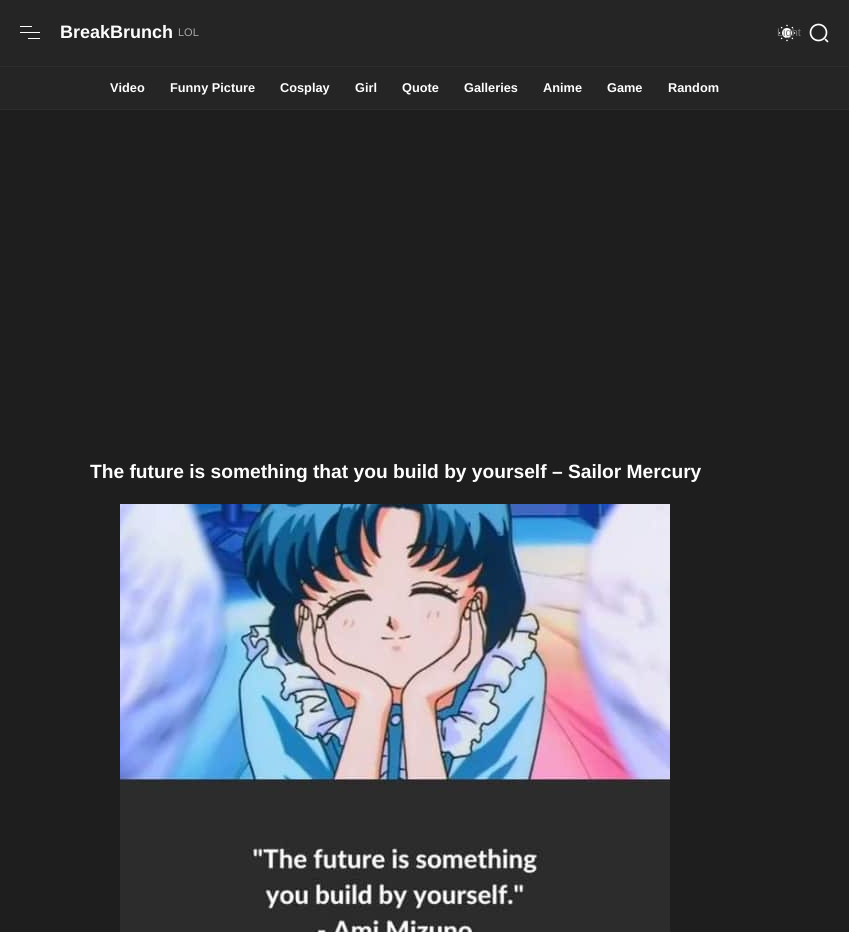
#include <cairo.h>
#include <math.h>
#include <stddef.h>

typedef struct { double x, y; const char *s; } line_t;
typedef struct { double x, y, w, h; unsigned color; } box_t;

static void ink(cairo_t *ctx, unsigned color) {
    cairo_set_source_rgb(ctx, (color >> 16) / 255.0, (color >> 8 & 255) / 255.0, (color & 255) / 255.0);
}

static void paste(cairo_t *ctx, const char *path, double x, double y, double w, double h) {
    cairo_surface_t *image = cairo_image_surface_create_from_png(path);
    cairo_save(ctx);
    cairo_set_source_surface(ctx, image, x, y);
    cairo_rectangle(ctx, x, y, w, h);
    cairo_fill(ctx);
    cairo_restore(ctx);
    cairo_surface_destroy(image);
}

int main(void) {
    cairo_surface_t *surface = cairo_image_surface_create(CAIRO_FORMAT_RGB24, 849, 932);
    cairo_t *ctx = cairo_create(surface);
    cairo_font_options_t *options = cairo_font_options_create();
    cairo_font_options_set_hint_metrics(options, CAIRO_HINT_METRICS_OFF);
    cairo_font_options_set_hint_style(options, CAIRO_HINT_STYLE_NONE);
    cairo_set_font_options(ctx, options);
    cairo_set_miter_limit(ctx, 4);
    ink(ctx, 0x1E1E1E);
    cairo_paint(ctx);
    {
        static const box_t items[] = {
            {0, 0, 849, 109, 0x252526},
            {0, 109, 849, 1, 0x2D2D30},
            {20, 26, 12, 1, 0xFEFEFE},
            {20, 32, 20, 1, 0xFEFEFE},
            {28, 38, 12, 1, 0xFEFEFE},
        };
        for (size_t i = 0; i < sizeof items / sizeof *items; i++) {
            ink(ctx, items[i].color);
            cairo_rectangle(ctx, items[i].x, items[i].y, items[i].w, items[i].h);
            cairo_fill(ctx);
        }
    }
    cairo_select_font_face(ctx, "Liberation Sans", CAIRO_FONT_SLANT_NORMAL, CAIRO_FONT_WEIGHT_BOLD);
    cairo_set_font_size(ctx, 18);
    cairo_move_to(ctx, 60, 38);
    cairo_show_text(ctx, "BreakBrunch");
    cairo_select_font_face(ctx, "Liberation Sans", CAIRO_FONT_SLANT_NORMAL, CAIRO_FONT_WEIGHT_NORMAL);
    cairo_set_font_size(ctx, 11);
    ink(ctx, 0xA7A7A8);
    cairo_move_to(ctx, 178, 36);
    cairo_show_text(ctx, "LOL");
    paste(ctx, "media/1.png", 778, 24, 18, 18);
    ink(ctx, 0x787878);
    cairo_move_to(ctx, 777, 36);
    cairo_show_text(ctx, "Light");
    cairo_new_path(ctx);
    cairo_arc(ctx, 818.5, 32.5, 8, 0, 2 * M_PI);
    ink(ctx, 0xFEFEFE);
    cairo_set_line_width(ctx, 1.7);
    cairo_stroke(ctx);
    cairo_new_path(ctx);
    cairo_move_to(ctx, 827.5, 41.5);
    cairo_line_to(ctx, 825.5, 39.5);
    cairo_set_line_cap(ctx, CAIRO_LINE_CAP_ROUND);
    cairo_set_line_join(ctx, CAIRO_LINE_JOIN_ROUND);
    cairo_stroke(ctx);
    ink(ctx, 0x2D2D30);
    cairo_rectangle(ctx, 0, 66, 849, 1);
    cairo_fill(ctx);
    cairo_select_font_face(ctx, "Liberation Sans", CAIRO_FONT_SLANT_NORMAL, CAIRO_FONT_WEIGHT_BOLD);
    cairo_set_font_size(ctx, 12.75);
    ink(ctx, 0xFEFEFE);
    {
        static const line_t items[] = {
            {110, 92, "Video"},
            {170, 92, "Funny Picture"},
            {280, 92, "Cosplay"},
            {355, 92, "Girl"},
            {402, 92, "Quote"},
            {464, 92, "Galleries"},
            {543, 92, "Anime"},
            {607, 92, "Game"},
            {668, 92, "Random"},
        };
        for (size_t i = 0; i < sizeof items / sizeof *items; i++) {
            cairo_move_to(ctx, items[i].x, items[i].y);
            cairo_show_text(ctx, items[i].s);
        }
    }
    cairo_set_font_size(ctx, 19.2);
    cairo_move_to(ctx, 90, 478);
    cairo_show_text(ctx, "The future is something that you build by yourself – Sailor Mercury");
    paste(ctx, "media/2.png", 120, 504, 550, 428);
    cairo_surface_write_to_png(surface, "image.png");
    cairo_font_options_destroy(options);
    cairo_destroy(ctx);
    cairo_surface_destroy(surface);
    return 0;
}
